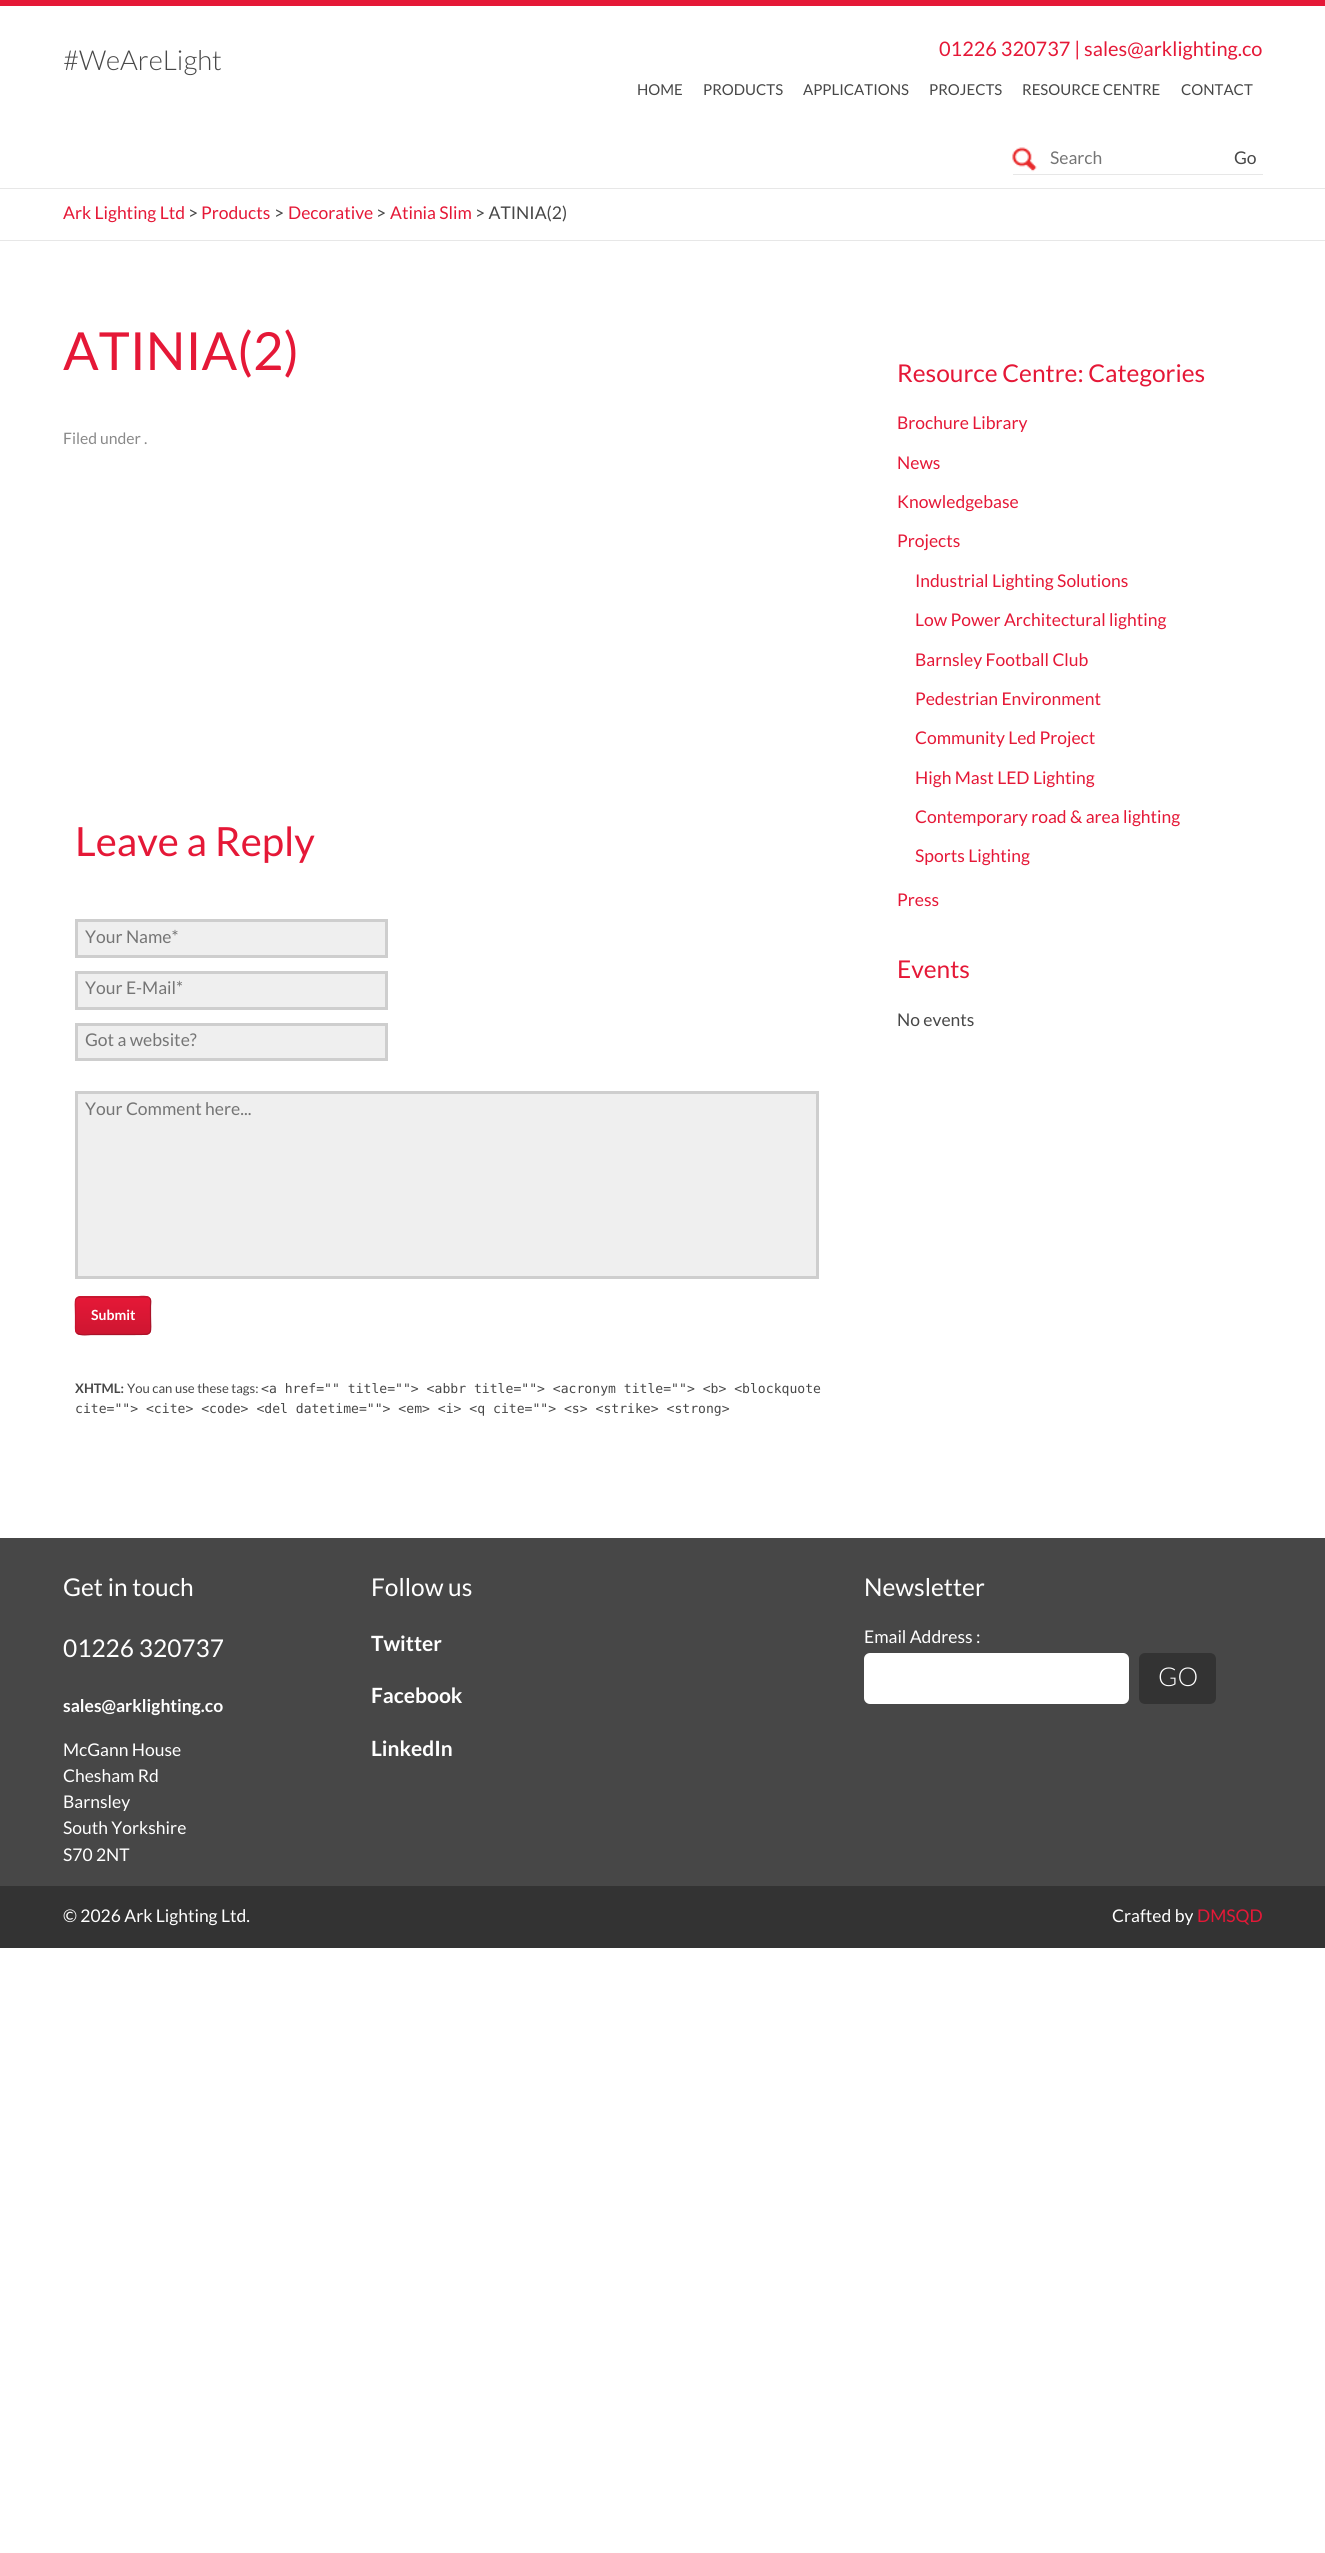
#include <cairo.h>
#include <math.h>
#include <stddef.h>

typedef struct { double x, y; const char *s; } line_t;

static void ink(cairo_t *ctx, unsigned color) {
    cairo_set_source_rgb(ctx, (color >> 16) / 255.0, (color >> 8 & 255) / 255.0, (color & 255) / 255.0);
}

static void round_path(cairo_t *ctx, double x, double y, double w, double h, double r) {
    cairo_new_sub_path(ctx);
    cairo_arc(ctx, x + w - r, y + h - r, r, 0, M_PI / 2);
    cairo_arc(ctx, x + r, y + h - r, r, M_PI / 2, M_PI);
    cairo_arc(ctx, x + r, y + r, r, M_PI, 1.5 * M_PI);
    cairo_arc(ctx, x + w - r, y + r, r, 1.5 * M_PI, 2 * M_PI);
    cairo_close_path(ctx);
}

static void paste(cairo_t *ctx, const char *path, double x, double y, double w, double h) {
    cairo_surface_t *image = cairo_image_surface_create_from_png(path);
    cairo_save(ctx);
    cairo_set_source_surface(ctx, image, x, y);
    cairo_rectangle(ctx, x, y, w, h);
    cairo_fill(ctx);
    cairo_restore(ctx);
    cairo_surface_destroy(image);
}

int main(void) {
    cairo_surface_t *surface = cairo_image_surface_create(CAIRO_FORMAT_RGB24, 1325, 2553);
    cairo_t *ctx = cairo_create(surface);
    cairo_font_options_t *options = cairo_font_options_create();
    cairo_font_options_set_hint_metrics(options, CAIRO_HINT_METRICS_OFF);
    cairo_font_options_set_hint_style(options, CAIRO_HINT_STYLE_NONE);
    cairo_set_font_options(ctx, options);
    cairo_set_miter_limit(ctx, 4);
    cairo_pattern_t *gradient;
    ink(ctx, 0xFFFFFF);
    cairo_paint(ctx);
    ink(ctx, 0xE51837);
    cairo_rectangle(ctx, 0, 0, 1325, 6);
    cairo_fill(ctx);
    ink(ctx, 0xE7E7E7);
    cairo_rectangle(ctx, 0, 188, 1325, 1);
    cairo_fill(ctx);
    cairo_select_font_face(ctx, "Lato Light", CAIRO_FONT_SLANT_NORMAL, CAIRO_FONT_WEIGHT_NORMAL);
    cairo_set_font_size(ctx, 27.5);
    ink(ctx, 0x474747);
    cairo_move_to(ctx, 63, 70);
    cairo_show_text(ctx, "#WeAreLight");
    cairo_select_font_face(ctx, "Lato", CAIRO_FONT_SLANT_NORMAL, CAIRO_FONT_WEIGHT_NORMAL);
    cairo_set_font_size(ctx, 20);
    ink(ctx, 0xE51837);
    cairo_move_to(ctx, 939, 56);
    cairo_show_text(ctx, "01226 320737 | sales@arklighting.co");
    cairo_set_font_size(ctx, 15);
    ink(ctx, 0x474747);
    {
        static const line_t items[] = {
            {637, 95, "HOME"},
            {703, 95, "PRODUCTS"},
            {803, 95, "APPLICATIONS"},
            {929, 95, "PROJECTS"},
            {1022, 95, "RESOURCE CENTRE"},
            {1181, 95, "CONTACT"},
        };
        for (size_t i = 0; i < sizeof items / sizeof *items; i++) {
            cairo_move_to(ctx, items[i].x, items[i].y);
            cairo_show_text(ctx, items[i].s);
        }
    }
    ink(ctx, 0xE7E7E7);
    cairo_rectangle(ctx, 1013, 174, 250, 1);
    cairo_fill(ctx);
    paste(ctx, "media/1.png", 1012, 147, 25, 25);
    cairo_set_font_size(ctx, 17.5);
    ink(ctx, 0x757575);
    cairo_move_to(ctx, 1050, 164);
    cairo_show_text(ctx, "Search");
    ink(ctx, 0x474747);
    cairo_move_to(ctx, 1234, 164);
    cairo_show_text(ctx, "Go");
    ink(ctx, 0xE7E7E7);
    cairo_rectangle(ctx, 0, 240, 1325, 1);
    cairo_fill(ctx);
    ink(ctx, 0xE51837);
    cairo_move_to(ctx, 63, 219);
    cairo_show_text(ctx, "Ark Lighting Ltd");
    ink(ctx, 0x474747);
    cairo_move_to(ctx, 188, 219);
    cairo_show_text(ctx, ">");
    ink(ctx, 0xE51837);
    cairo_move_to(ctx, 201, 219);
    cairo_show_text(ctx, "Products");
    ink(ctx, 0x474747);
    cairo_move_to(ctx, 274, 219);
    cairo_show_text(ctx, ">");
    ink(ctx, 0xE51837);
    cairo_move_to(ctx, 288, 219);
    cairo_show_text(ctx, "Decorative");
    ink(ctx, 0x474747);
    cairo_move_to(ctx, 376, 219);
    cairo_show_text(ctx, ">");
    ink(ctx, 0xE51837);
    cairo_move_to(ctx, 390, 219);
    cairo_show_text(ctx, "Atinia Slim");
    ink(ctx, 0x474747);
    cairo_move_to(ctx, 475, 219);
    cairo_show_text(ctx, "> ATINIA(2)");
    cairo_set_font_size(ctx, 52.5);
    ink(ctx, 0xE51837);
    cairo_move_to(ctx, 63, 370);
    cairo_show_text(ctx, "ATINIA(2)");
    cairo_set_font_size(ctx, 15.75);
    ink(ctx, 0x898989);
    cairo_move_to(ctx, 63, 444);
    cairo_show_text(ctx, "Filed under .");
    cairo_set_font_size(ctx, 40.25);
    ink(ctx, 0xE51837);
    cairo_move_to(ctx, 75, 856);
    cairo_show_text(ctx, "Leave a Reply");
    ink(ctx, 0xEFEFEF);
    cairo_rectangle(ctx, 76.5, 920.5, 310, 36);
    cairo_fill_preserve(ctx);
    ink(ctx, 0xCECECE);
    cairo_set_line_width(ctx, 3);
    cairo_stroke(ctx);
    cairo_set_font_size(ctx, 17.5);
    ink(ctx, 0x757575);
    cairo_move_to(ctx, 85, 943);
    cairo_show_text(ctx, "Your Name*");
    ink(ctx, 0xEFEFEF);
    cairo_rectangle(ctx, 76.5, 972.5, 310, 36);
    cairo_fill_preserve(ctx);
    ink(ctx, 0xCECECE);
    cairo_stroke(ctx);
    ink(ctx, 0x757575);
    cairo_move_to(ctx, 85, 994);
    cairo_show_text(ctx, "Your E-Mail*");
    ink(ctx, 0xEFEFEF);
    cairo_rectangle(ctx, 76.5, 1024.5, 310, 35);
    cairo_fill_preserve(ctx);
    ink(ctx, 0xCECECE);
    cairo_stroke(ctx);
    ink(ctx, 0x757575);
    cairo_move_to(ctx, 85, 1046);
    cairo_show_text(ctx, "Got a website?");
    ink(ctx, 0xEFEFEF);
    cairo_rectangle(ctx, 76.5, 1092.5, 741, 185);
    cairo_fill_preserve(ctx);
    ink(ctx, 0xCECECE);
    cairo_stroke(ctx);
    ink(ctx, 0x757575);
    cairo_move_to(ctx, 85, 1115);
    cairo_show_text(ctx, "Your Comment here...");
    cairo_save(ctx);
    round_path(ctx, 75, 1296, 76, 39, 5);
    cairo_clip(ctx);
    gradient = cairo_pattern_create_linear(113, 1261, 113, 1298);
    cairo_pattern_add_color_stop_rgba(gradient, 0, 0.898, 0.094, 0.216, 1);
    cairo_pattern_add_color_stop_rgba(gradient, 1, 0.808, 0.086, 0.192, 1);
    cairo_set_source(ctx, gradient);
    cairo_pattern_destroy(gradient);
    cairo_rectangle(ctx, 75, 1296, 76, 2);
    cairo_fill(ctx);
    gradient = cairo_pattern_create_linear(113, 1298, 113, 1334);
    cairo_pattern_add_color_stop_rgba(gradient, 0, 0.898, 0.094, 0.216, 1);
    cairo_pattern_add_color_stop_rgba(gradient, 1, 0.808, 0.086, 0.192, 1);
    cairo_set_source(ctx, gradient);
    cairo_pattern_destroy(gradient);
    cairo_rectangle(ctx, 75, 1298, 76, 36);
    cairo_fill(ctx);
    gradient = cairo_pattern_create_linear(113, 1334, 113, 1370);
    cairo_pattern_add_color_stop_rgba(gradient, 0, 0.898, 0.094, 0.216, 1);
    cairo_pattern_add_color_stop_rgba(gradient, 1, 0.808, 0.086, 0.192, 1);
    cairo_set_source(ctx, gradient);
    cairo_pattern_destroy(gradient);
    cairo_rectangle(ctx, 75, 1334, 76, 1);
    cairo_fill(ctx);
    cairo_restore(ctx);
    cairo_new_path(ctx);
    cairo_move_to(ctx, 149.5, 1298);
    cairo_curve_to(ctx, 151.5, 1300, 150.5, 1303.5, 150.5, 1306);
    cairo_line_to(ctx, 150.5, 1315.5);
    cairo_curve_to(ctx, 150.5, 1335, 154, 1334.5, 135, 1334.5);
    cairo_line_to(ctx, 91, 1334.5);
    cairo_curve_to(ctx, 90, 1334.5, 80, 1336, 77, 1333);
    ink(ctx, 0xA91229);
    cairo_set_line_width(ctx, 1.2);
    cairo_stroke(ctx);
    cairo_new_path(ctx);
    cairo_move_to(ctx, 77, 1333);
    cairo_curve_to(ctx, 75, 1331, 75.5, 1327.5, 75.5, 1325);
    cairo_line_to(ctx, 75.5, 1315.5);
    cairo_curve_to(ctx, 75.5, 1296, 72, 1297, 91, 1297);
    cairo_line_to(ctx, 135, 1297);
    cairo_curve_to(ctx, 136, 1297, 146.5, 1295, 149.5, 1298);
    ink(ctx, 0xC5152F);
    cairo_stroke(ctx);
    cairo_select_font_face(ctx, "Lato", CAIRO_FONT_SLANT_NORMAL, CAIRO_FONT_WEIGHT_BOLD);
    cairo_set_font_size(ctx, 14);
    ink(ctx, 0xFFFFFF);
    cairo_move_to(ctx, 91, 1320);
    cairo_show_text(ctx, "Submit");
    cairo_set_font_size(ctx, 13.1);
    ink(ctx, 0x474747);
    cairo_move_to(ctx, 75, 1393);
    cairo_show_text(ctx, "XHTML:");
    cairo_select_font_face(ctx, "Lato", CAIRO_FONT_SLANT_NORMAL, CAIRO_FONT_WEIGHT_NORMAL);
    cairo_move_to(ctx, 127, 1393);
    cairo_show_text(ctx, "You can use these tags:");
    cairo_select_font_face(ctx, "DejaVu Sans Mono", CAIRO_FONT_SLANT_NORMAL, CAIRO_FONT_WEIGHT_NORMAL);
    cairo_move_to(ctx, 261, 1393);
    cairo_show_text(ctx, "<a href=\"\" title=\"\"> <abbr title=\"\"> <acronym title=\"\"> <b> <blockquote");
    cairo_move_to(ctx, 75, 1413);
    cairo_show_text(ctx, "cite=\"\"> <cite> <code> <del datetime=\"\"> <em> <i> <q cite=\"\"> <s> <strike> <strong>");
    cairo_select_font_face(ctx, "Lato", CAIRO_FONT_SLANT_NORMAL, CAIRO_FONT_WEIGHT_NORMAL);
    cairo_set_font_size(ctx, 24.5);
    ink(ctx, 0xE51837);
    cairo_move_to(ctx, 897, 382);
    cairo_show_text(ctx, "Resource Centre: Categories");
    cairo_set_font_size(ctx, 17.5);
    {
        static const line_t items[] = {
            {897, 429, "Brochure Library"},
            {897, 469, "News"},
            {897, 508, "Knowledgebase"},
            {897, 547, "Projects"},
            {915, 587, "Industrial Lighting Solutions"},
            {915, 626, "Low Power Architectural lighting"},
            {915, 666, "Barnsley Football Club"},
            {915, 705, "Pedestrian Environment"},
            {915, 744, "Community Led Project"},
            {915, 784, "High Mast LED Lighting"},
            {915, 823, "Contemporary road & area lighting"},
            {915, 862, "Sports Lighting"},
            {897, 906, "Press"},
        };
        for (size_t i = 0; i < sizeof items / sizeof *items; i++) {
            cairo_move_to(ctx, items[i].x, items[i].y);
            cairo_show_text(ctx, items[i].s);
        }
    }
    cairo_set_font_size(ctx, 24.5);
    cairo_move_to(ctx, 897, 978);
    cairo_show_text(ctx, "Events");
    cairo_set_font_size(ctx, 17.5);
    ink(ctx, 0x474747);
    cairo_move_to(ctx, 897, 1026);
    cairo_show_text(ctx, "No events");
    cairo_rectangle(ctx, 0, 1538, 1325, 348);
    cairo_fill(ctx);
    cairo_set_font_size(ctx, 24.5);
    ink(ctx, 0xFFFFFF);
    cairo_move_to(ctx, 63, 1596);
    cairo_show_text(ctx, "Get in touch");
    cairo_move_to(ctx, 63, 1657);
    cairo_show_text(ctx, "01226 320737");
    cairo_select_font_face(ctx, "Lato", CAIRO_FONT_SLANT_NORMAL, CAIRO_FONT_WEIGHT_BOLD);
    cairo_set_font_size(ctx, 17.5);
    cairo_move_to(ctx, 63, 1712);
    cairo_show_text(ctx, "sales@arklighting.co");
    cairo_select_font_face(ctx, "Lato", CAIRO_FONT_SLANT_NORMAL, CAIRO_FONT_WEIGHT_NORMAL);
    {
        static const line_t items[] = {
            {63, 1756, "McGann House"},
            {63, 1782, "Chesham Rd"},
            {63, 1808, "Barnsley"},
            {63, 1834, "South Yorkshire"},
            {63, 1861, "S70 2NT"},
        };
        for (size_t i = 0; i < sizeof items / sizeof *items; i++) {
            cairo_move_to(ctx, items[i].x, items[i].y);
            cairo_show_text(ctx, items[i].s);
        }
    }
    cairo_set_font_size(ctx, 24.5);
    cairo_move_to(ctx, 371, 1596);
    cairo_show_text(ctx, "Follow us");
    cairo_select_font_face(ctx, "Lato", CAIRO_FONT_SLANT_NORMAL, CAIRO_FONT_WEIGHT_BOLD);
    cairo_set_font_size(ctx, 21);
    {
        static const line_t items[] = {
            {371, 1651, "Twitter"},
            {371, 1703, "Facebook"},
            {371, 1756, "LinkedIn"},
        };
        for (size_t i = 0; i < sizeof items / sizeof *items; i++) {
            cairo_move_to(ctx, items[i].x, items[i].y);
            cairo_show_text(ctx, items[i].s);
        }
    }
    cairo_select_font_face(ctx, "Lato", CAIRO_FONT_SLANT_NORMAL, CAIRO_FONT_WEIGHT_NORMAL);
    cairo_set_font_size(ctx, 24.5);
    cairo_move_to(ctx, 864, 1596);
    cairo_show_text(ctx, "Newsletter");
    cairo_set_font_size(ctx, 17.5);
    cairo_move_to(ctx, 864, 1643);
    cairo_show_text(ctx, "Email Address :");
    round_path(ctx, 864, 1653, 265, 51, 6);
    cairo_fill(ctx);
    ink(ctx, 0x333333);
    round_path(ctx, 1139, 1653, 77, 51, 6);
    cairo_fill(ctx);
    cairo_select_font_face(ctx, "Lato Light", CAIRO_FONT_SLANT_NORMAL, CAIRO_FONT_WEIGHT_NORMAL);
    cairo_set_font_size(ctx, 26);
    ink(ctx, 0xFFFFFF);
    cairo_move_to(ctx, 1158, 1686);
    cairo_show_text(ctx, "GO");
    ink(ctx, 0x333333);
    cairo_rectangle(ctx, 0, 1886, 1325, 62);
    cairo_fill(ctx);
    cairo_select_font_face(ctx, "Lato", CAIRO_FONT_SLANT_NORMAL, CAIRO_FONT_WEIGHT_NORMAL);
    cairo_set_font_size(ctx, 17.5);
    ink(ctx, 0xFFFFFF);
    cairo_move_to(ctx, 63, 1922);
    cairo_show_text(ctx, "© 2026 Ark Lighting Ltd.");
    cairo_move_to(ctx, 1112, 1922);
    cairo_show_text(ctx, "Crafted by");
    ink(ctx, 0xE51837);
    cairo_move_to(ctx, 1197, 1922);
    cairo_show_text(ctx, "DMSQD");
    cairo_surface_write_to_png(surface, "image.png");
    cairo_font_options_destroy(options);
    cairo_destroy(ctx);
    cairo_surface_destroy(surface);
    return 0;
}
